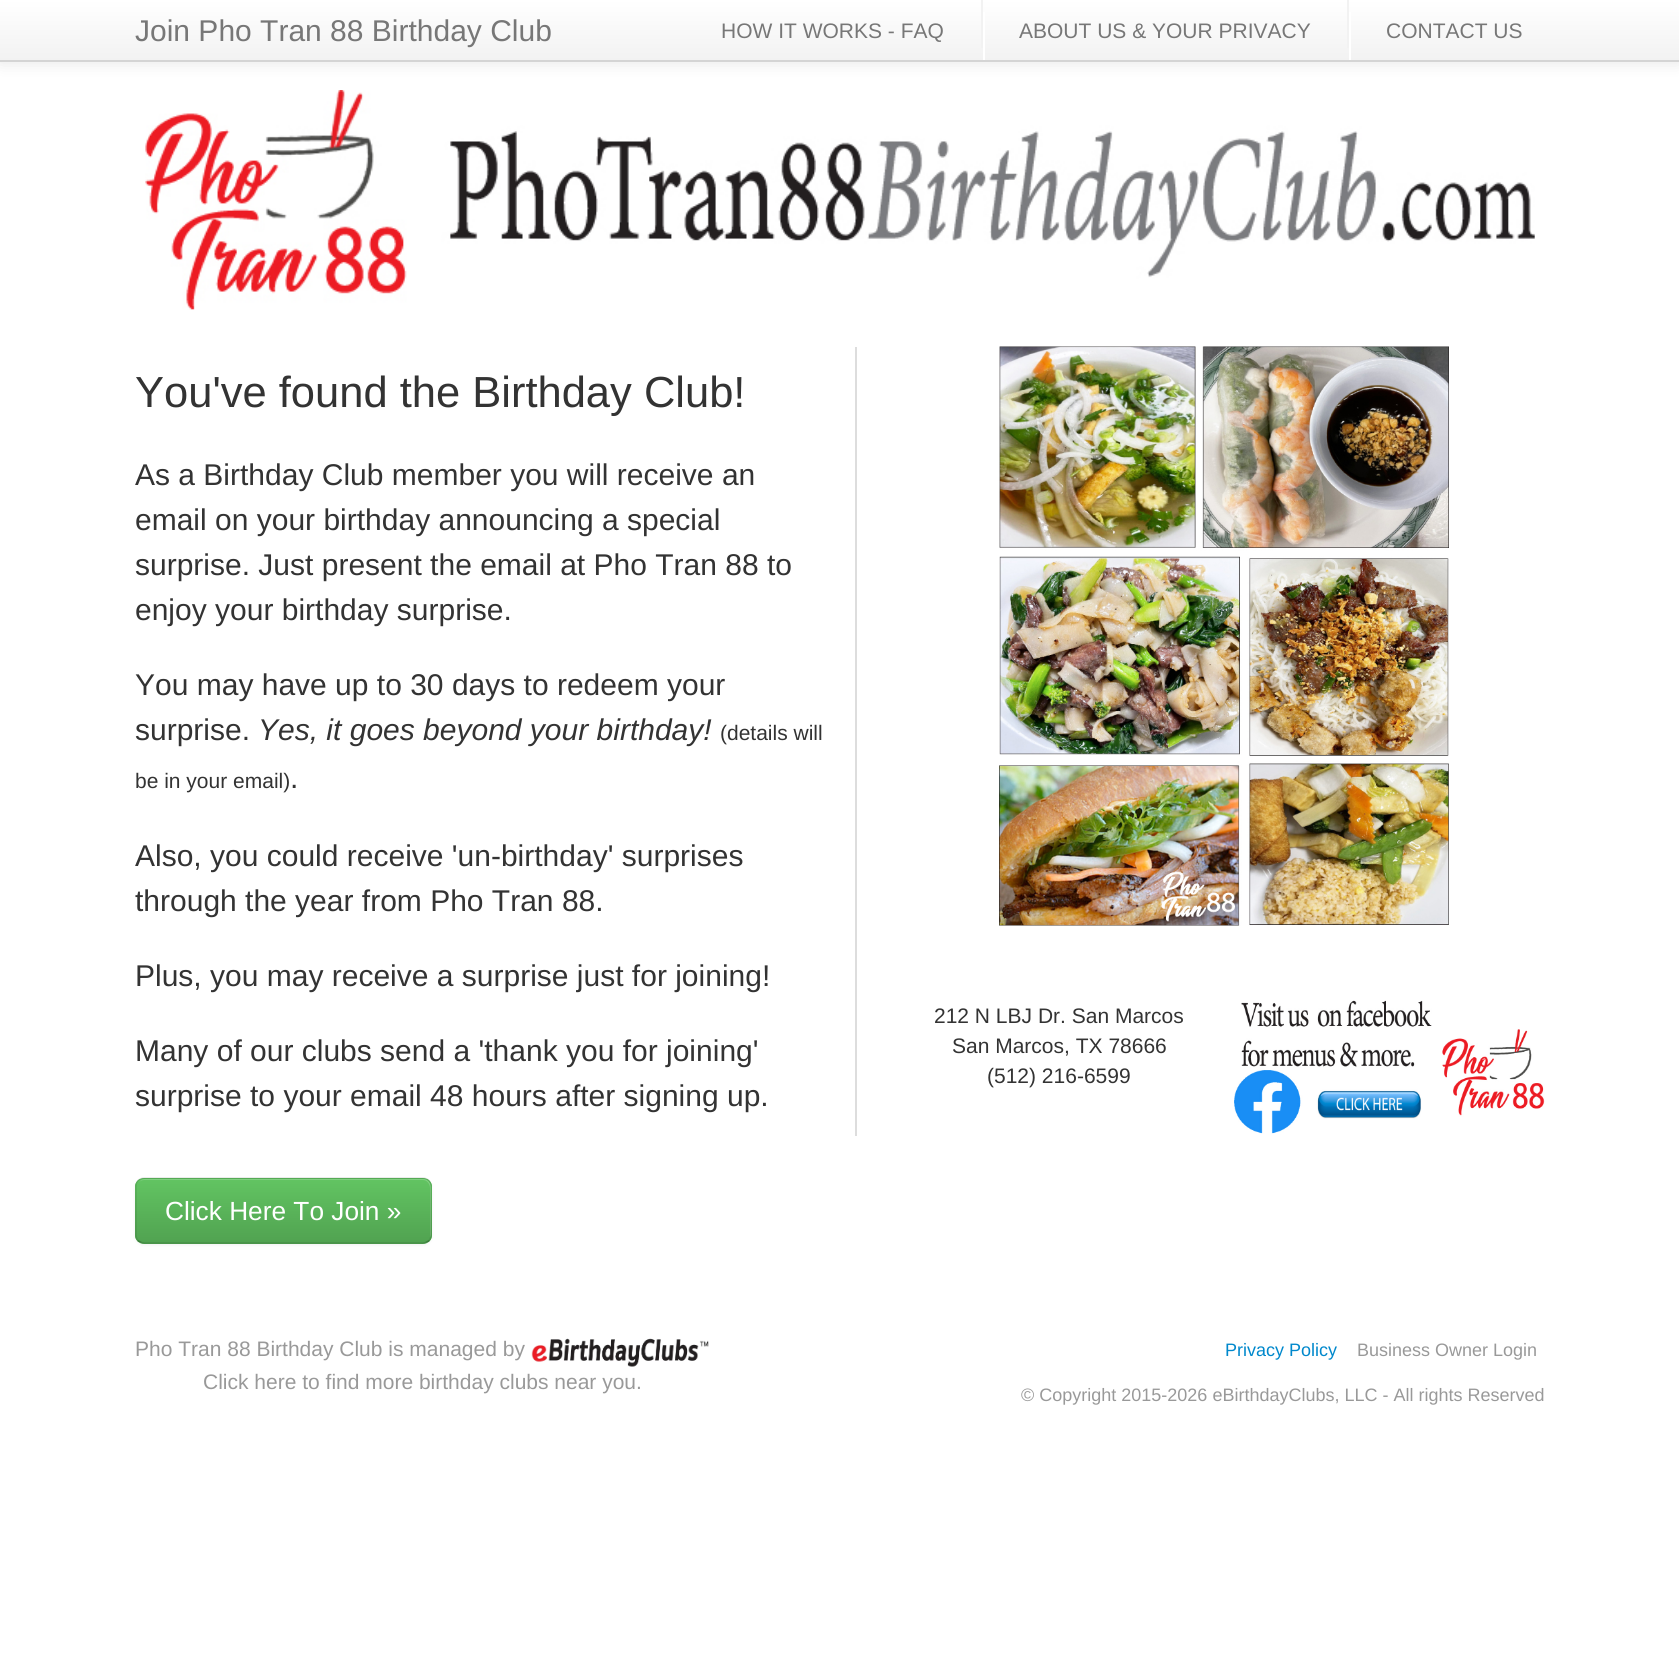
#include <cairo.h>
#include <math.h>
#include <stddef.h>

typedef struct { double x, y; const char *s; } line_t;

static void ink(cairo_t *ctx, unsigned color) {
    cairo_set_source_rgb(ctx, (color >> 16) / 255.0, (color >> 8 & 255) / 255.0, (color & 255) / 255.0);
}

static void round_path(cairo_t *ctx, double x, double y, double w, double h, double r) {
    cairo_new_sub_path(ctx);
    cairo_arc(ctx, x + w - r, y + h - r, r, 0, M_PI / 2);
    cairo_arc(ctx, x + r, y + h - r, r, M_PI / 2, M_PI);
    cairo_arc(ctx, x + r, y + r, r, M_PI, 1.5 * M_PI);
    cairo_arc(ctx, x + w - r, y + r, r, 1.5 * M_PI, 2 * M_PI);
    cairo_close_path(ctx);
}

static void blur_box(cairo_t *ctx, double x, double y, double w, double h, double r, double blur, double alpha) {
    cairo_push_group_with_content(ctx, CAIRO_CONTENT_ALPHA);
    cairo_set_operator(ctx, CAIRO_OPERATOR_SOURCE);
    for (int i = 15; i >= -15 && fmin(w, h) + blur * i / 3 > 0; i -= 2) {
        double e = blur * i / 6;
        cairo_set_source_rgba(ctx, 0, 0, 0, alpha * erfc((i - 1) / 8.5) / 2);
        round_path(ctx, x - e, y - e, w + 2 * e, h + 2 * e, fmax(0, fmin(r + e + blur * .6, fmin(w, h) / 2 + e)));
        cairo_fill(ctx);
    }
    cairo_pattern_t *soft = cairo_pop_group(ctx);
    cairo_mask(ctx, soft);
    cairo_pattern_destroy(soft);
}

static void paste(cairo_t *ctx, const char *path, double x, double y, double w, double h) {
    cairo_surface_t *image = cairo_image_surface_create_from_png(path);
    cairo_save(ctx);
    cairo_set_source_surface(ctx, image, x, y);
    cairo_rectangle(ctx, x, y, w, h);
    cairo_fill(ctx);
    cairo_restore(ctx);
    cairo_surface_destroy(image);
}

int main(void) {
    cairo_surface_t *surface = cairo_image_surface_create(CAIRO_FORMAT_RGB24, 1679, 1657);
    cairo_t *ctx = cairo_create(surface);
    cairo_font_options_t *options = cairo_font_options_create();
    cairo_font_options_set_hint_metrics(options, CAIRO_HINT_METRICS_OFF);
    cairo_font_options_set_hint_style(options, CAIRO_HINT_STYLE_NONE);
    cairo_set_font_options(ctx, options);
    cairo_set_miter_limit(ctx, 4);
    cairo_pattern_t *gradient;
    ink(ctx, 0xFFFFFF);
    cairo_paint(ctx);
    ink(ctx, 0x000000);
    blur_box(ctx, 0, 2, 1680, 61, 0, 7.5, 0.1);
    gradient = cairo_pattern_create_linear(840, 0, 840, 60);
    cairo_pattern_add_color_stop_rgba(gradient, 0, 1, 1, 1, 1);
    cairo_pattern_add_color_stop_rgba(gradient, 1, 0.949, 0.949, 0.949, 1);
    cairo_set_source(ctx, gradient);
    cairo_pattern_destroy(gradient);
    cairo_rectangle(ctx, 0, 0, 1679, 60);
    cairo_fill(ctx);
    ink(ctx, 0xD4D4D4);
    cairo_rectangle(ctx, 0, 60, 1679, 2);
    cairo_fill(ctx);
    cairo_select_font_face(ctx, "Liberation Sans", CAIRO_FONT_SLANT_NORMAL, CAIRO_FONT_WEIGHT_NORMAL);
    cairo_set_font_size(ctx, 30);
    ink(ctx, 0x777777);
    cairo_move_to(ctx, 135, 41);
    cairo_show_text(ctx, "Join Pho Tran 88 Birthday Club");
    cairo_set_font_size(ctx, 21);
    cairo_move_to(ctx, 721, 38);
    cairo_show_text(ctx, "HOW IT WORKS - FAQ");
    ink(ctx, 0xFFFFFF);
    cairo_rectangle(ctx, 983, 12, 2, 48);
    cairo_fill(ctx);
    ink(ctx, 0xF2F2F2);
    cairo_rectangle(ctx, 981, 0, 2, 48);
    cairo_fill(ctx);
    ink(ctx, 0x777777);
    cairo_move_to(ctx, 1019, 38);
    cairo_show_text(ctx, "ABOUT US & YOUR PRIVACY");
    ink(ctx, 0xFFFFFF);
    cairo_rectangle(ctx, 1349, 12, 2, 48);
    cairo_fill(ctx);
    ink(ctx, 0xF2F2F2);
    cairo_rectangle(ctx, 1347, 0, 2, 48);
    cairo_fill(ctx);
    ink(ctx, 0x777777);
    cairo_move_to(ctx, 1386, 38);
    cairo_show_text(ctx, "CONTACT US");
    paste(ctx, "media/1.png", 145, 90, 1390, 220);
    cairo_set_font_size(ctx, 43.5);
    ink(ctx, 0x333333);
    cairo_move_to(ctx, 135, 407);
    cairo_show_text(ctx, "You've found the Birthday Club!");
    cairo_set_font_size(ctx, 30);
    {
        static const line_t items[] = {
            {135, 485, "As a Birthday Club member you will receive an"},
            {135, 530, "email on your birthday announcing a special"},
            {135, 575, "surprise. Just present the email at Pho Tran 88 to"},
            {135, 620, "enjoy your birthday surprise."},
            {135, 695, "You may have up to 30 days to redeem your"},
            {135, 740, "surprise."},
        };
        for (size_t i = 0; i < sizeof items / sizeof *items; i++) {
            cairo_move_to(ctx, items[i].x, items[i].y);
            cairo_show_text(ctx, items[i].s);
        }
    }
    cairo_select_font_face(ctx, "Liberation Sans", CAIRO_FONT_SLANT_ITALIC, CAIRO_FONT_WEIGHT_NORMAL);
    cairo_move_to(ctx, 258, 740);
    cairo_show_text(ctx, "Yes, it goes beyond your birthday!");
    cairo_select_font_face(ctx, "Liberation Sans", CAIRO_FONT_SLANT_NORMAL, CAIRO_FONT_WEIGHT_NORMAL);
    cairo_set_font_size(ctx, 21);
    cairo_move_to(ctx, 720, 740);
    cairo_show_text(ctx, "(details will");
    cairo_move_to(ctx, 135, 788);
    cairo_show_text(ctx, "be in your email)");
    cairo_set_font_size(ctx, 30);
    {
        static const line_t items[] = {
            {290, 788, "."},
            {135, 866, "Also, you could receive 'un-birthday' surprises"},
            {135, 911, "through the year from Pho Tran 88."},
            {135, 986, "Plus, you may receive a surprise just for joining!"},
            {135, 1061, "Many of our clubs send a 'thank you for joining'"},
            {135, 1106, "surprise to your email 48 hours after signing up."},
        };
        for (size_t i = 0; i < sizeof items / sizeof *items; i++) {
            cairo_move_to(ctx, items[i].x, items[i].y);
            cairo_show_text(ctx, items[i].s);
        }
    }
    ink(ctx, 0x000000);
    blur_box(ctx, 135, 1179, 297, 66, 9, 1.5, 0.05);
    ink(ctx, 0x5BB75B);
    round_path(ctx, 135, 1178, 297, 66, 9);
    cairo_fill(ctx);
    cairo_save(ctx);
    round_path(ctx, 135, 1178, 297, 66, 9);
    cairo_clip(ctx);
    gradient = cairo_pattern_create_linear(284, 1179, 284, 1242);
    cairo_pattern_add_color_stop_rgba(gradient, 0, 0.384, 0.769, 0.384, 1);
    cairo_pattern_add_color_stop_rgba(gradient, 1, 0.318, 0.639, 0.318, 1);
    cairo_set_source(ctx, gradient);
    cairo_pattern_destroy(gradient);
    cairo_rectangle(ctx, 135, 1179, 297, 63);
    cairo_fill(ctx);
    cairo_restore(ctx);
    cairo_set_source_rgba(ctx, 1, 1, 1, 0.2);
    cairo_new_path(ctx);
    cairo_move_to(ctx, 144, 1180);
    cairo_line_to(ctx, 423, 1180);
    cairo_curve_to(ctx, 427, 1180, 430, 1184, 430, 1188);
    cairo_line_to(ctx, 430, 1236);
    cairo_line_to(ctx, 430, 1238);
    cairo_curve_to(ctx, 430, 1237, 431, 1236, 431, 1234);
    cairo_line_to(ctx, 431, 1187);
    cairo_curve_to(ctx, 431, 1183, 427, 1179, 423, 1179);
    cairo_line_to(ctx, 145, 1179);
    cairo_curve_to(ctx, 142, 1179, 140, 1181, 138, 1183);
    cairo_curve_to(ctx, 140, 1181, 142, 1180, 144, 1180);
    cairo_close_path(ctx);
    cairo_fill(ctx);
    cairo_new_path(ctx);
    cairo_move_to(ctx, 429, 1240.5);
    cairo_curve_to(ctx, 427.5, 1242, 425, 1243, 423, 1243);
    cairo_line_to(ctx, 144, 1243);
    cairo_curve_to(ctx, 142, 1243, 139.5, 1242, 138, 1240.5);
    cairo_set_source_rgba(ctx, 0, 0, 0, 0.25);
    cairo_set_line_width(ctx, 1.5);
    cairo_stroke(ctx);
    cairo_new_path(ctx);
    cairo_move_to(ctx, 138, 1240.5);
    cairo_curve_to(ctx, 136.5, 1239, 136, 1236.5, 136, 1234.5);
    cairo_line_to(ctx, 136, 1186.5);
    cairo_curve_to(ctx, 136, 1184.5, 136.5, 1182, 138, 1180.5);
    cairo_curve_to(ctx, 139.5, 1179, 142, 1178, 144, 1178);
    cairo_line_to(ctx, 423, 1178);
    cairo_curve_to(ctx, 425, 1178, 427.5, 1179, 429, 1180.5);
    cairo_curve_to(ctx, 430.5, 1182, 431, 1184.5, 431, 1186.5);
    cairo_line_to(ctx, 431, 1234.5);
    cairo_curve_to(ctx, 431, 1236.5, 430.5, 1239, 429, 1240.5);
    cairo_set_source_rgba(ctx, 0, 0, 0, 0.1);
    cairo_stroke(ctx);
    cairo_set_font_size(ctx, 26.25);
    ink(ctx, 0xFFFFFF);
    cairo_move_to(ctx, 165, 1220);
    cairo_show_text(ctx, "Click Here To Join »");
    ink(ctx, 0xDDDDDD);
    cairo_rectangle(ctx, 855, 347, 2, 789);
    cairo_fill(ctx);
    paste(ctx, "media/2.png", 999, 346, 450, 580);
    cairo_set_font_size(ctx, 21);
    ink(ctx, 0x333333);
    {
        static const line_t items[] = {
            {934, 1023, "212 N LBJ Dr. San Marcos"},
            {952, 1053, "San Marcos, TX 78666"},
            {987, 1083, "(512) 216-6599"},
        };
        for (size_t i = 0; i < sizeof items / sizeof *items; i++) {
            cairo_move_to(ctx, items[i].x, items[i].y);
            cairo_show_text(ctx, items[i].s);
        }
    }
    paste(ctx, "media/3.png", 1234, 1000, 311, 134);
    ink(ctx, 0x999999);
    cairo_move_to(ctx, 135, 1356);
    cairo_show_text(ctx, "Pho Tran 88 Birthday Club is managed by");
    paste(ctx, "media/4.png", 531, 1338, 178, 29);
    cairo_move_to(ctx, 203, 1389);
    cairo_show_text(ctx, "Click here to find more birthday clubs near you.");
    cairo_set_font_size(ctx, 18);
    ink(ctx, 0x0088CC);
    cairo_move_to(ctx, 1225, 1356);
    cairo_show_text(ctx, "Privacy Policy");
    ink(ctx, 0x999999);
    cairo_move_to(ctx, 1357, 1356);
    cairo_show_text(ctx, "Business Owner Login");
    cairo_move_to(ctx, 1021, 1401);
    cairo_show_text(ctx, "© Copyright 2015-2026 eBirthdayClubs, LLC - All rights Reserved");
    cairo_surface_write_to_png(surface, "image.png");
    cairo_font_options_destroy(options);
    cairo_destroy(ctx);
    cairo_surface_destroy(surface);
    return 0;
}
